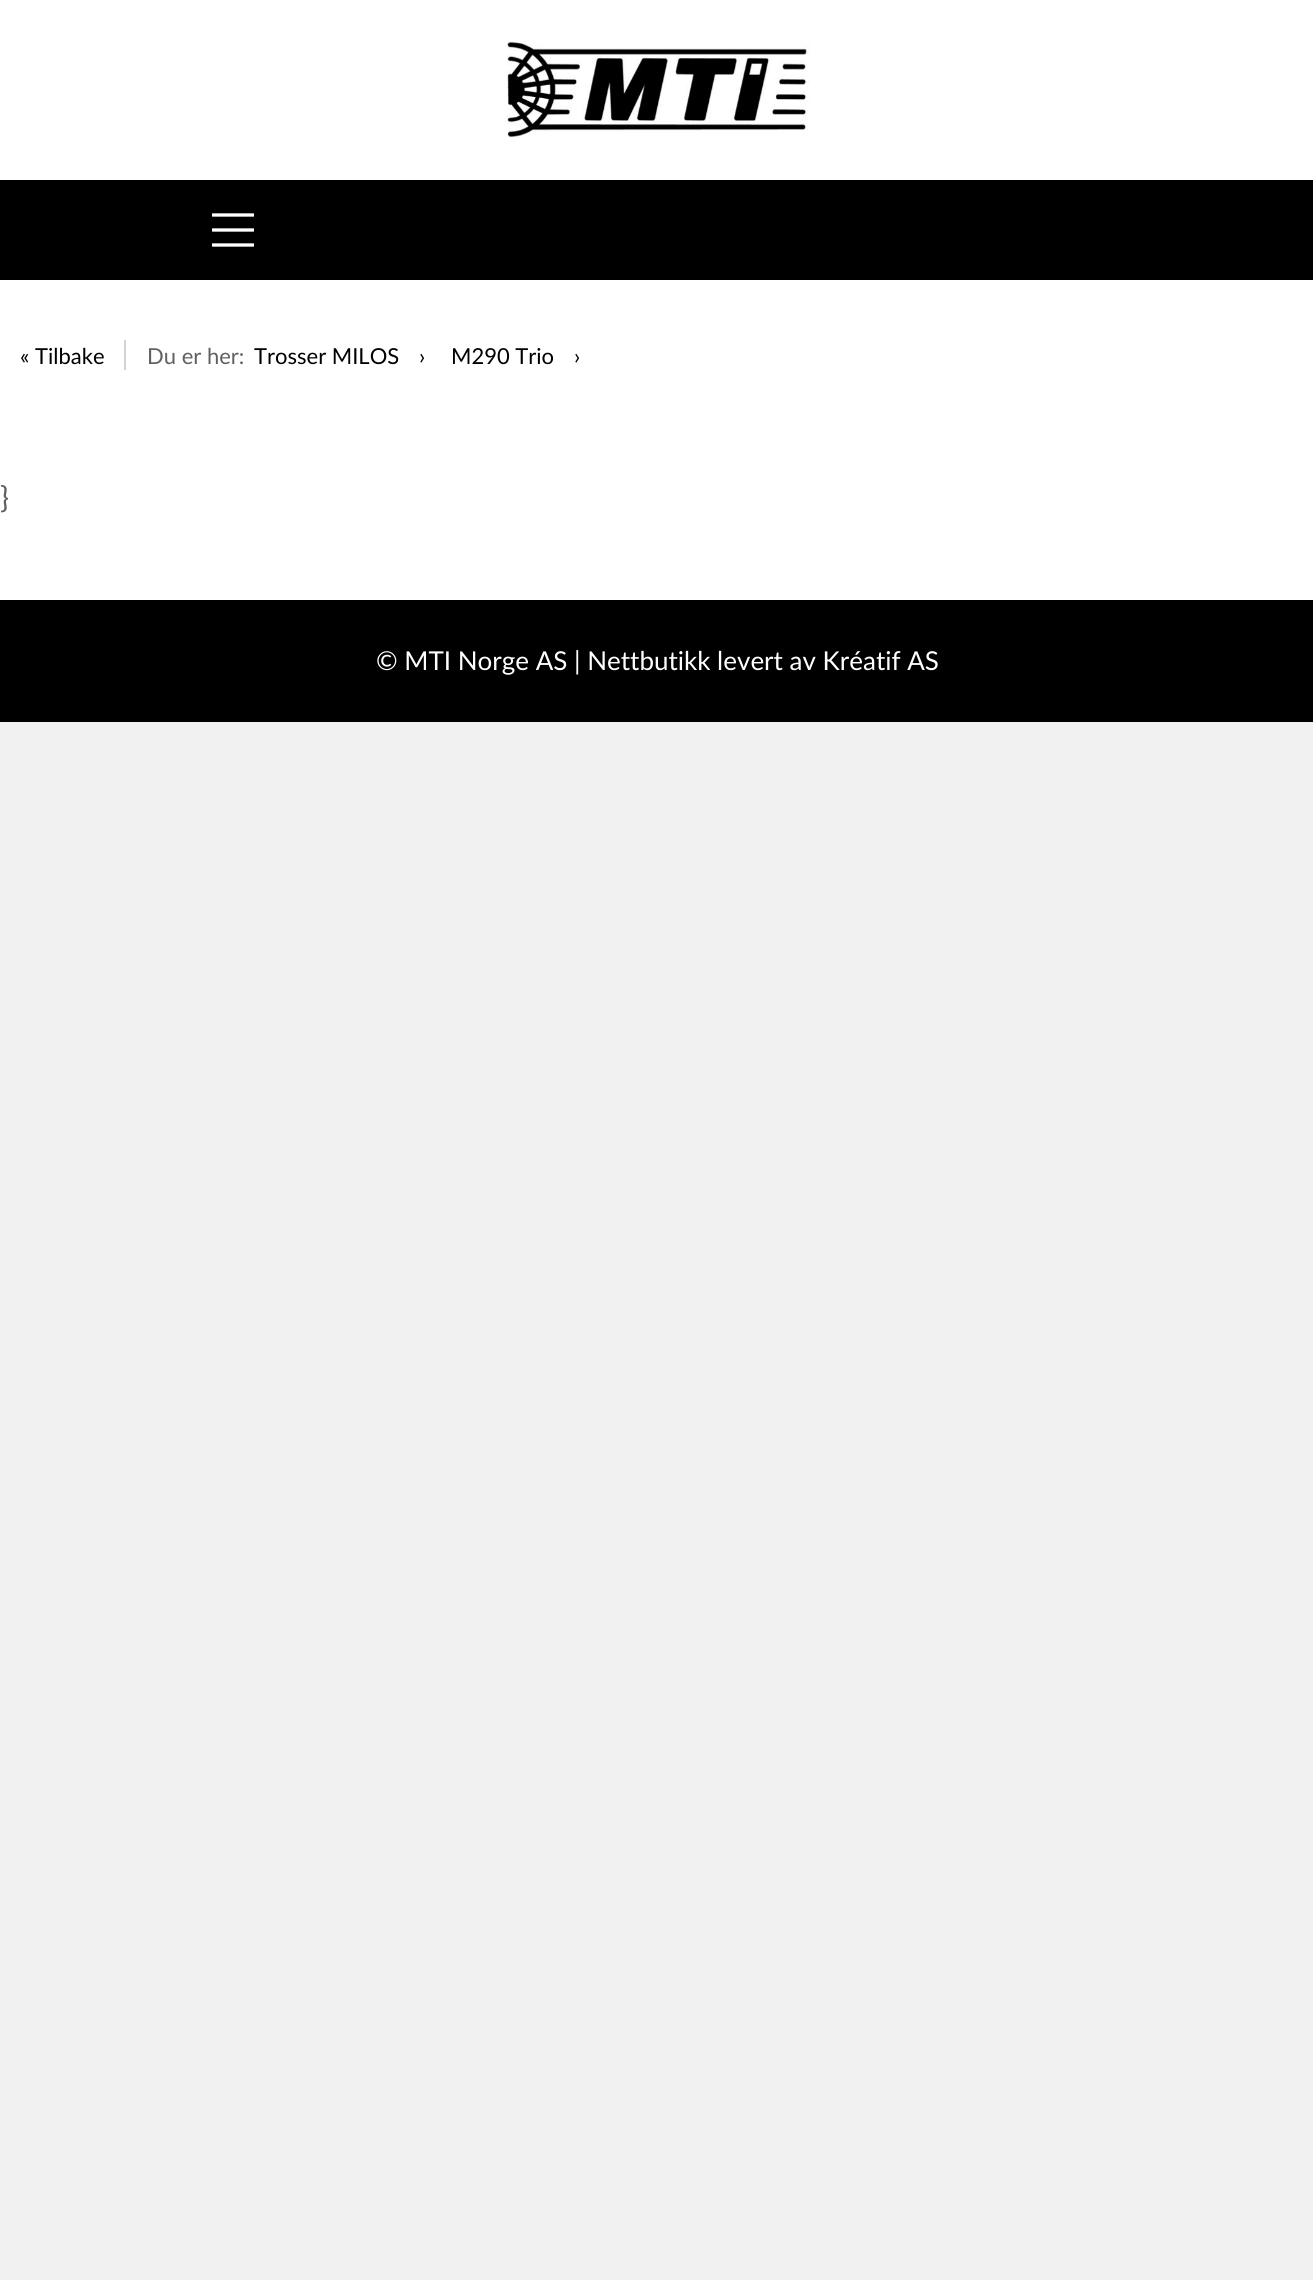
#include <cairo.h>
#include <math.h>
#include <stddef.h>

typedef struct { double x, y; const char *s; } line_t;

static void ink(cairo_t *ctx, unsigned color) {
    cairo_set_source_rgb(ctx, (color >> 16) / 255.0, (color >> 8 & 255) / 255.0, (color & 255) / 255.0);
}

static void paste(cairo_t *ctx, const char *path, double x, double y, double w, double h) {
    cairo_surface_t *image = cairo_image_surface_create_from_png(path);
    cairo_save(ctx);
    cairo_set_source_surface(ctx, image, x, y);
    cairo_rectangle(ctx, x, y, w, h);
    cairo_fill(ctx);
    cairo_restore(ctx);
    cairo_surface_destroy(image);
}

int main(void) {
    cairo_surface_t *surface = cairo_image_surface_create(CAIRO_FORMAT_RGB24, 1313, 2280);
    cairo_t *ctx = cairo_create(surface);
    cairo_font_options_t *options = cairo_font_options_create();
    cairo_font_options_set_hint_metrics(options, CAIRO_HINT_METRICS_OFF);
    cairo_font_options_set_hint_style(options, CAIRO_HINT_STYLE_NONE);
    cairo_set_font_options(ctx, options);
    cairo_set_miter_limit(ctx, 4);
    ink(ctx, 0xF1F1F1);
    cairo_paint(ctx);
    ink(ctx, 0xFFFFFF);
    cairo_rectangle(ctx, 0, 0, 1313, 600);
    cairo_fill(ctx);
    paste(ctx, "media/1.png", 507, 41, 303, 97);
    ink(ctx, 0x000000);
    cairo_rectangle(ctx, 0, 180, 1313, 100);
    cairo_fill(ctx);
    paste(ctx, "media/2.png", 212, 213, 42, 34);
    cairo_select_font_face(ctx, "Lato", CAIRO_FONT_SLANT_NORMAL, CAIRO_FONT_WEIGHT_NORMAL);
    cairo_set_font_size(ctx, 22);
    cairo_move_to(ctx, 20, 364);
    cairo_show_text(ctx, "« Tilbake");
    ink(ctx, 0xD3D3D3);
    cairo_rectangle(ctx, 124, 340, 2, 30);
    cairo_fill(ctx);
    ink(ctx, 0x606060);
    cairo_move_to(ctx, 147, 364);
    cairo_show_text(ctx, "Du er her:");
    ink(ctx, 0x000000);
    {
        static const line_t items[] = {
            {254, 364, "Trosser MILOS"},
            {419, 364, "›"},
            {451, 364, "M290 Trio"},
            {574, 364, "›"},
        };
        for (size_t i = 0; i < sizeof items / sizeof *items; i++) {
            cairo_move_to(ctx, items[i].x, items[i].y);
            cairo_show_text(ctx, items[i].s);
        }
    }
    cairo_set_font_size(ctx, 30);
    ink(ctx, 0x606060);
    cairo_move_to(ctx, 0, 508);
    cairo_show_text(ctx, "}");
    ink(ctx, 0x000000);
    cairo_rectangle(ctx, 0, 600, 1313, 122);
    cairo_fill(ctx);
    cairo_set_font_size(ctx, 26);
    ink(ctx, 0xFFFFFF);
    cairo_move_to(ctx, 376, 670);
    cairo_show_text(ctx, "© MTI Norge AS | Nettbutikk levert av Kréatif AS");
    cairo_surface_write_to_png(surface, "image.png");
    cairo_font_options_destroy(options);
    cairo_destroy(ctx);
    cairo_surface_destroy(surface);
    return 0;
}
